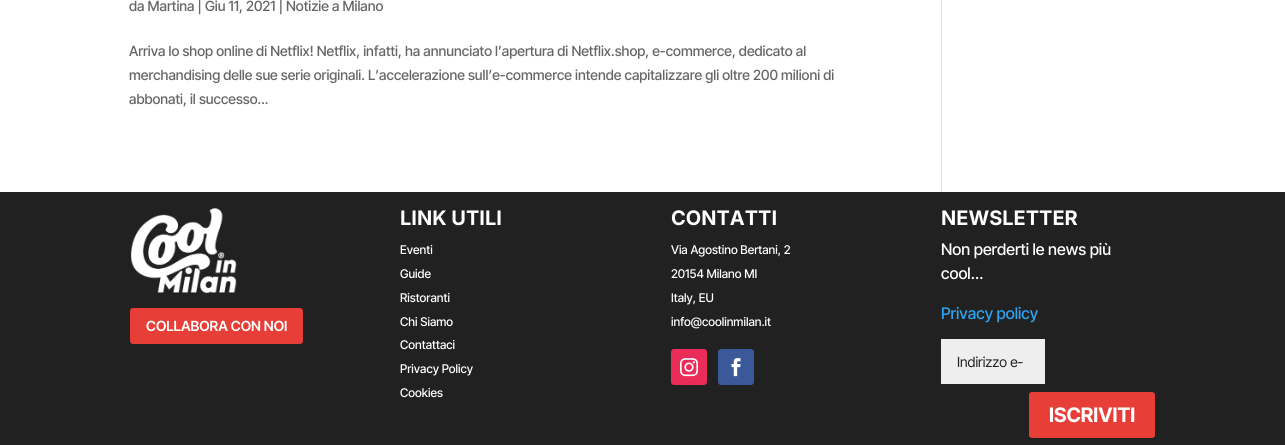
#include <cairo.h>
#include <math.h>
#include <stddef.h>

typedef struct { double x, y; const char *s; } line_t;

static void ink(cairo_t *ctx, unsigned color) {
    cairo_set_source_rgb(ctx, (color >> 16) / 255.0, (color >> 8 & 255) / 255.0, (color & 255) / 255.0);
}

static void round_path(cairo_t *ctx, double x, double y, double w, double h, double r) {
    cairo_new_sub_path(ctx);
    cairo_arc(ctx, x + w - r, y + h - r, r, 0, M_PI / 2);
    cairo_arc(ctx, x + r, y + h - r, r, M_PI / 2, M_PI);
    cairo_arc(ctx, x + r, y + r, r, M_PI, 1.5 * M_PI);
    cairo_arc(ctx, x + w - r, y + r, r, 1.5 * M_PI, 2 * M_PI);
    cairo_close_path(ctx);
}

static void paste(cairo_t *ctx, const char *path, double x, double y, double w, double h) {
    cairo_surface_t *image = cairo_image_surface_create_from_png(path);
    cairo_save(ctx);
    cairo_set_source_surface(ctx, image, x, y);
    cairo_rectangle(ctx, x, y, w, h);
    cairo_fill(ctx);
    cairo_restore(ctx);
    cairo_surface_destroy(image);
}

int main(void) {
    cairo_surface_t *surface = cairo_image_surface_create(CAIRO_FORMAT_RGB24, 1285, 445);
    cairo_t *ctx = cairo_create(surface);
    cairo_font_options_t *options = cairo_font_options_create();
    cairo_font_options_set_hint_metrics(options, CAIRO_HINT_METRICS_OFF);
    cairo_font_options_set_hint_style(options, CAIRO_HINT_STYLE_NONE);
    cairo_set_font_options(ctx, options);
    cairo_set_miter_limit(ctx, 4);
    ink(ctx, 0xFFFFFF);
    cairo_paint(ctx);
    cairo_select_font_face(ctx, "Inter Tight Medium", CAIRO_FONT_SLANT_NORMAL, CAIRO_FONT_WEIGHT_NORMAL);
    cairo_set_font_size(ctx, 14);
    ink(ctx, 0x666666);
    {
        static const line_t items[] = {
            {129, 11, "da Martina | Giu 11, 2021 | Notizie a Milano"},
            {129, 56, "Arriva lo shop online di Netflix! Netflix, infatti, ha annunciato l’apertura di Netflix.shop, e-commerce, dedicato al"},
            {129, 80, "merchandising delle sue serie originali. L’accelerazione sull’e-commerce intende capitalizzare gli oltre 200 milioni di"},
            {129, 104, "abbonati, il successo..."},
        };
        for (size_t i = 0; i < sizeof items / sizeof *items; i++) {
            cairo_move_to(ctx, items[i].x, items[i].y);
            cairo_show_text(ctx, items[i].s);
        }
    }
    ink(ctx, 0xE2E2E2);
    cairo_rectangle(ctx, 941, 0, 1, 193);
    cairo_fill(ctx);
    ink(ctx, 0x212121);
    cairo_rectangle(ctx, 0, 192, 1285, 253);
    cairo_fill(ctx);
    paste(ctx, "media/1.png", 130, 208, 107, 85);
    ink(ctx, 0xE73F38);
    round_path(ctx, 131, 309, 171, 34, 2);
    cairo_fill_preserve(ctx);
    cairo_stroke(ctx);
    cairo_select_font_face(ctx, "Inter Tight SemiBold", CAIRO_FONT_SLANT_NORMAL, CAIRO_FONT_WEIGHT_NORMAL);
    ink(ctx, 0xFFFFFF);
    cairo_move_to(ctx, 146, 331);
    cairo_show_text(ctx, "COLLABORA CON NOI");
    cairo_select_font_face(ctx, "Inter", CAIRO_FONT_SLANT_NORMAL, CAIRO_FONT_WEIGHT_BOLD);
    cairo_set_font_size(ctx, 20);
    cairo_move_to(ctx, 400, 225);
    cairo_show_text(ctx, "LINK UTILI");
    cairo_select_font_face(ctx, "Inter Tight Medium", CAIRO_FONT_SLANT_NORMAL, CAIRO_FONT_WEIGHT_NORMAL);
    cairo_set_font_size(ctx, 12);
    {
        static const line_t items[] = {
            {400, 254, "Eventi"},
            {400, 278, "Guide"},
            {400, 302, "Ristoranti"},
            {400, 326, "Chi Siamo"},
            {400, 349, "Contattaci"},
            {400, 373, "Privacy Policy"},
            {400, 397, "Cookies"},
        };
        for (size_t i = 0; i < sizeof items / sizeof *items; i++) {
            cairo_move_to(ctx, items[i].x, items[i].y);
            cairo_show_text(ctx, items[i].s);
        }
    }
    cairo_select_font_face(ctx, "Inter", CAIRO_FONT_SLANT_NORMAL, CAIRO_FONT_WEIGHT_BOLD);
    cairo_set_font_size(ctx, 20);
    cairo_move_to(ctx, 671, 225);
    cairo_show_text(ctx, "CONTATTI");
    cairo_select_font_face(ctx, "Inter Tight Medium", CAIRO_FONT_SLANT_NORMAL, CAIRO_FONT_WEIGHT_NORMAL);
    cairo_set_font_size(ctx, 12);
    {
        static const line_t items[] = {
            {671, 254, "Via Agostino Bertani, 2"},
            {671, 278, "20154 Milano MI"},
            {671, 302, "Italy, EU"},
            {671, 326, "info@coolinmilan.it"},
        };
        for (size_t i = 0; i < sizeof items / sizeof *items; i++) {
            cairo_move_to(ctx, items[i].x, items[i].y);
            cairo_show_text(ctx, items[i].s);
        }
    }
    ink(ctx, 0xEA2C59);
    round_path(ctx, 671, 349, 36, 36, 3);
    cairo_fill(ctx);
    paste(ctx, "media/2.png", 680, 358, 18, 19);
    ink(ctx, 0x3B5998);
    round_path(ctx, 718, 349, 36, 36, 3);
    cairo_fill(ctx);
    paste(ctx, "media/3.png", 731, 358, 10, 19);
    cairo_select_font_face(ctx, "Inter", CAIRO_FONT_SLANT_NORMAL, CAIRO_FONT_WEIGHT_BOLD);
    cairo_set_font_size(ctx, 20);
    ink(ctx, 0xFFFFFF);
    cairo_move_to(ctx, 941, 225);
    cairo_show_text(ctx, "NEWSLETTER");
    cairo_select_font_face(ctx, "Inter Tight Medium", CAIRO_FONT_SLANT_NORMAL, CAIRO_FONT_WEIGHT_NORMAL);
    cairo_set_font_size(ctx, 16);
    cairo_move_to(ctx, 941, 255);
    cairo_show_text(ctx, "Non perderti le news più");
    cairo_move_to(ctx, 941, 279);
    cairo_show_text(ctx, "cool…");
    ink(ctx, 0x2EA3F2);
    cairo_move_to(ctx, 941, 319);
    cairo_show_text(ctx, "Privacy policy");
    ink(ctx, 0xEEEEEE);
    cairo_rectangle(ctx, 941, 339, 104, 45);
    cairo_fill(ctx);
    cairo_select_font_face(ctx, "Inter Tight", CAIRO_FONT_SLANT_NORMAL, CAIRO_FONT_WEIGHT_NORMAL);
    cairo_set_font_size(ctx, 14);
    ink(ctx, 0x212121);
    cairo_move_to(ctx, 957, 367);
    cairo_show_text(ctx, "Indirizzo e-");
    ink(ctx, 0xE73F38);
    round_path(ctx, 1029, 392, 126, 46, 3);
    cairo_fill(ctx);
    cairo_select_font_face(ctx, "Inter Tight", CAIRO_FONT_SLANT_NORMAL, CAIRO_FONT_WEIGHT_BOLD);
    cairo_set_font_size(ctx, 20);
    ink(ctx, 0xFFFFFF);
    cairo_move_to(ctx, 1049, 422);
    cairo_show_text(ctx, "ISCRIVITI");
    cairo_surface_write_to_png(surface, "image.png");
    cairo_font_options_destroy(options);
    cairo_destroy(ctx);
    cairo_surface_destroy(surface);
    return 0;
}
